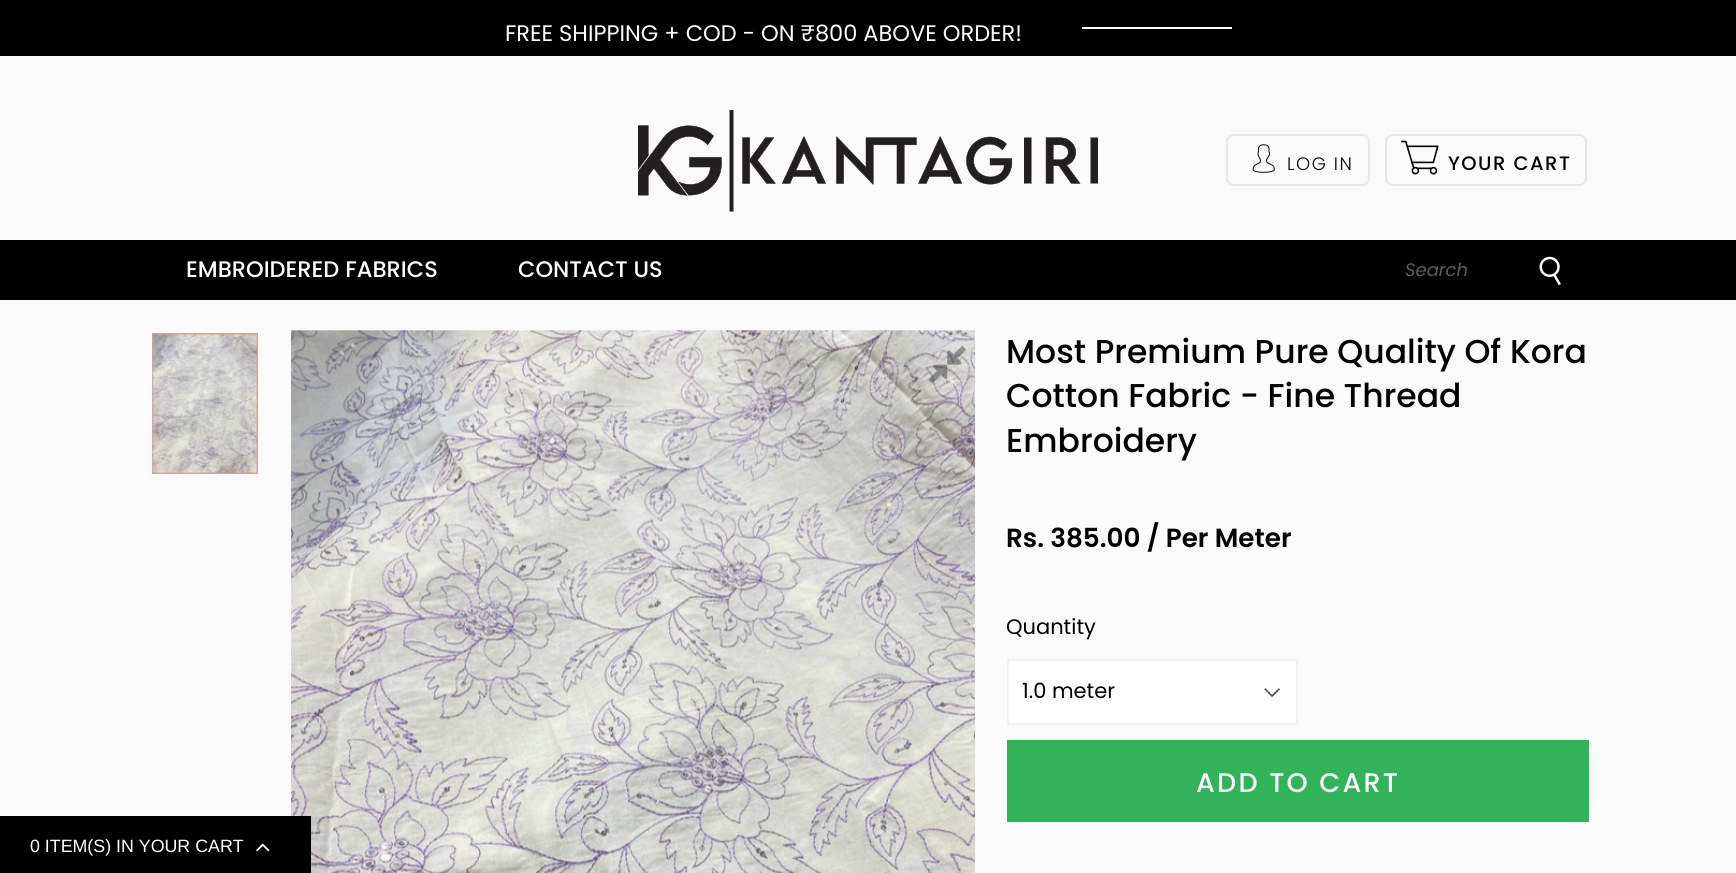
#include <cairo.h>
#include <math.h>
#include <stddef.h>

typedef struct { double x, y; const char *s; } line_t;

static void ink(cairo_t *ctx, unsigned color) {
    cairo_set_source_rgb(ctx, (color >> 16) / 255.0, (color >> 8 & 255) / 255.0, (color & 255) / 255.0);
}

static void write_spaced(cairo_t *ctx, double x, double y, const char *s, double letter, double word) {
    cairo_move_to(ctx, x, y);
    while (*s) {
        char ch[5] = {0};
        int n = 0;
        do ch[n++] = *s++; while ((*s & 0xC0) == 0x80);
        cairo_show_text(ctx, ch);
        cairo_rel_move_to(ctx, letter + word * (*ch == ' '), 0);
    }
}

static void round_path(cairo_t *ctx, double x, double y, double w, double h, double r) {
    cairo_new_sub_path(ctx);
    cairo_arc(ctx, x + w - r, y + h - r, r, 0, M_PI / 2);
    cairo_arc(ctx, x + r, y + h - r, r, M_PI / 2, M_PI);
    cairo_arc(ctx, x + r, y + r, r, M_PI, 1.5 * M_PI);
    cairo_arc(ctx, x + w - r, y + r, r, 1.5 * M_PI, 2 * M_PI);
    cairo_close_path(ctx);
}

static void paste(cairo_t *ctx, const char *path, double x, double y, double w, double h) {
    cairo_surface_t *image = cairo_image_surface_create_from_png(path);
    cairo_save(ctx);
    cairo_set_source_surface(ctx, image, x, y);
    cairo_rectangle(ctx, x, y, w, h);
    cairo_fill(ctx);
    cairo_restore(ctx);
    cairo_surface_destroy(image);
}

int main(void) {
    cairo_surface_t *surface = cairo_image_surface_create(CAIRO_FORMAT_RGB24, 1736, 873);
    cairo_t *ctx = cairo_create(surface);
    cairo_font_options_t *options = cairo_font_options_create();
    cairo_font_options_set_hint_metrics(options, CAIRO_HINT_METRICS_OFF);
    cairo_font_options_set_hint_style(options, CAIRO_HINT_STYLE_NONE);
    cairo_set_font_options(ctx, options);
    cairo_set_miter_limit(ctx, 4);
    ink(ctx, 0xFAFAFA);
    cairo_paint(ctx);
    ink(ctx, 0x000000);
    cairo_rectangle(ctx, 0, 0, 1736, 56);
    cairo_fill(ctx);
    cairo_select_font_face(ctx, "Poppins", CAIRO_FONT_SLANT_NORMAL, CAIRO_FONT_WEIGHT_NORMAL);
    cairo_set_font_size(ctx, 22.5);
    ink(ctx, 0xFFFFFF);
    cairo_move_to(ctx, 505, 41);
    cairo_show_text(ctx, "FREE SHIPPING + COD - ON ₹800 ABOVE ORDER!");
    cairo_rectangle(ctx, 1082, 27, 150, 2);
    cairo_fill(ctx);
    paste(ctx, "media/1.png", 638, 110, 460, 102);
    round_path(ctx, 1227, 135, 142, 50, 7);
    ink(ctx, 0xE7E7E7);
    cairo_stroke(ctx);
    paste(ctx, "media/2.png", 1252, 144, 23, 29);
    cairo_select_font_face(ctx, "Poppins Light", CAIRO_FONT_SLANT_NORMAL, CAIRO_FONT_WEIGHT_NORMAL);
    cairo_set_font_size(ctx, 18);
    ink(ctx, 0x000000);
    write_spaced(ctx, 1287, 170, "LOG IN", 1.5, 0);
    round_path(ctx, 1386, 135, 200, 50, 7);
    ink(ctx, 0xE7E7E7);
    cairo_stroke(ctx);
    paste(ctx, "media/3.png", 1401, 140, 38, 35);
    cairo_select_font_face(ctx, "Poppins Medium", CAIRO_FONT_SLANT_NORMAL, CAIRO_FONT_WEIGHT_NORMAL);
    cairo_set_font_size(ctx, 19.5);
    ink(ctx, 0x000000);
    write_spaced(ctx, 1448, 170, "YOUR CART", 1.5, 0);
    cairo_rectangle(ctx, 0, 240, 1736, 60);
    cairo_fill(ctx);
    cairo_set_font_size(ctx, 22.5);
    ink(ctx, 0xFFFFFF);
    cairo_move_to(ctx, 186, 277);
    cairo_show_text(ctx, "EMBROIDERED FABRICS");
    cairo_move_to(ctx, 518, 277);
    cairo_show_text(ctx, "CONTACT US");
    cairo_select_font_face(ctx, "Poppins", CAIRO_FONT_SLANT_ITALIC, CAIRO_FONT_WEIGHT_NORMAL);
    cairo_set_font_size(ctx, 18);
    ink(ctx, 0x5C5C5C);
    cairo_move_to(ctx, 1405, 276);
    cairo_show_text(ctx, "Search");
    paste(ctx, "media/4.png", 1539, 256, 22, 30);
    cairo_rectangle(ctx, 153, 334, 104, 139);
    ink(ctx, 0xD6A1A1);
    cairo_stroke(ctx);
    paste(ctx, "media/5.png", 152, 333, 105, 140);
    paste(ctx, "media/6.png", 291, 330, 685, 543);
    paste(ctx, "media/7.png", 928, 345, 38, 39);
    cairo_select_font_face(ctx, "Poppins Medium", CAIRO_FONT_SLANT_NORMAL, CAIRO_FONT_WEIGHT_NORMAL);
    cairo_set_font_size(ctx, 33);
    ink(ctx, 0x000000);
    {
        static const line_t items[] = {
            {1006, 363, "Most Premium Pure Quality Of Kora"},
            {1006, 407, "Cotton Fabric - Fine Thread"},
            {1006, 452, "Embroidery"},
        };
        for (size_t i = 0; i < sizeof items / sizeof *items; i++) {
            cairo_move_to(ctx, items[i].x, items[i].y);
            cairo_show_text(ctx, items[i].s);
        }
    }
    cairo_select_font_face(ctx, "Poppins SemiBold", CAIRO_FONT_SLANT_NORMAL, CAIRO_FONT_WEIGHT_NORMAL);
    cairo_set_font_size(ctx, 26.25);
    cairo_move_to(ctx, 1006, 547);
    cairo_show_text(ctx, "Rs. 385.00 / Per Meter");
    cairo_select_font_face(ctx, "Poppins", CAIRO_FONT_SLANT_NORMAL, CAIRO_FONT_WEIGHT_NORMAL);
    cairo_set_font_size(ctx, 21);
    cairo_move_to(ctx, 1006, 634);
    cairo_show_text(ctx, "Quantity");
    ink(ctx, 0xFFFFFF);
    cairo_rectangle(ctx, 1009, 661, 287, 62);
    cairo_fill(ctx);
    paste(ctx, "media/8.png", 1264, 688, 16, 9);
    cairo_rectangle(ctx, 1008, 660, 289, 64);
    ink(ctx, 0xF1F1F1);
    cairo_stroke(ctx);
    ink(ctx, 0x000000);
    cairo_move_to(ctx, 1022, 698);
    cairo_show_text(ctx, "1.0 meter");
    ink(ctx, 0x32B259);
    cairo_rectangle(ctx, 1007, 740, 582, 82);
    cairo_fill(ctx);
    cairo_select_font_face(ctx, "Poppins Medium", CAIRO_FONT_SLANT_NORMAL, CAIRO_FONT_WEIGHT_NORMAL);
    cairo_set_font_size(ctx, 27);
    ink(ctx, 0xFFFFFF);
    write_spaced(ctx, 1196, 792, "ADD TO CART", 2.25, 0);
    ink(ctx, 0x000000);
    cairo_rectangle(ctx, 0, 816, 311, 57);
    cairo_fill(ctx);
    cairo_select_font_face(ctx, "Liberation Sans", CAIRO_FONT_SLANT_NORMAL, CAIRO_FONT_WEIGHT_NORMAL);
    cairo_set_font_size(ctx, 17.8);
    ink(ctx, 0xFFFFFF);
    cairo_move_to(ctx, 30, 852);
    cairo_show_text(ctx, "0 ITEM(S) IN YOUR CART");
    paste(ctx, "media/9.png", 256, 843, 14, 9);
    cairo_surface_write_to_png(surface, "image.png");
    cairo_font_options_destroy(options);
    cairo_destroy(ctx);
    cairo_surface_destroy(surface);
    return 0;
}
